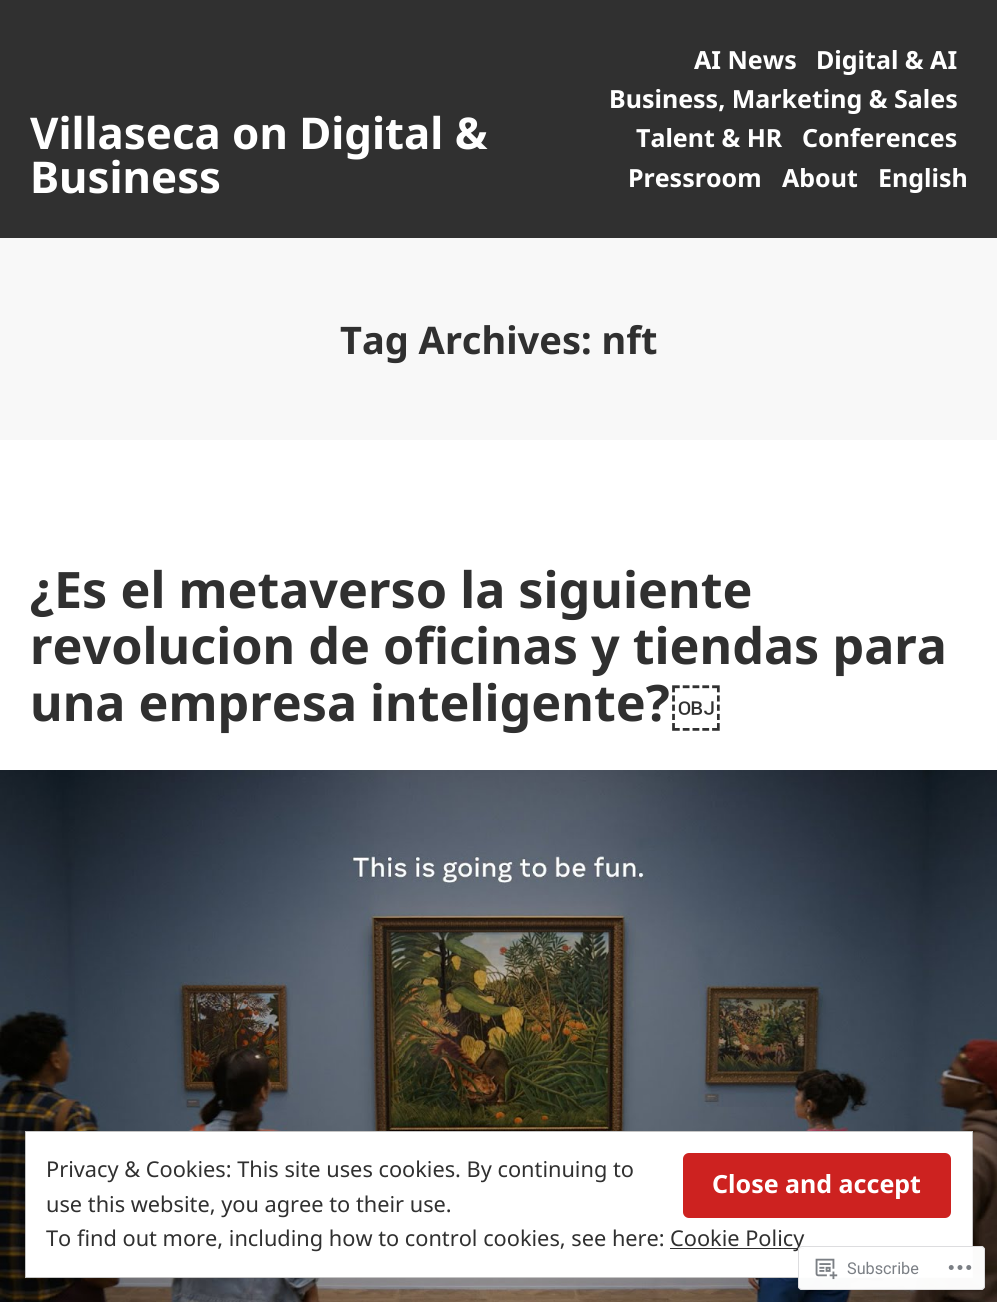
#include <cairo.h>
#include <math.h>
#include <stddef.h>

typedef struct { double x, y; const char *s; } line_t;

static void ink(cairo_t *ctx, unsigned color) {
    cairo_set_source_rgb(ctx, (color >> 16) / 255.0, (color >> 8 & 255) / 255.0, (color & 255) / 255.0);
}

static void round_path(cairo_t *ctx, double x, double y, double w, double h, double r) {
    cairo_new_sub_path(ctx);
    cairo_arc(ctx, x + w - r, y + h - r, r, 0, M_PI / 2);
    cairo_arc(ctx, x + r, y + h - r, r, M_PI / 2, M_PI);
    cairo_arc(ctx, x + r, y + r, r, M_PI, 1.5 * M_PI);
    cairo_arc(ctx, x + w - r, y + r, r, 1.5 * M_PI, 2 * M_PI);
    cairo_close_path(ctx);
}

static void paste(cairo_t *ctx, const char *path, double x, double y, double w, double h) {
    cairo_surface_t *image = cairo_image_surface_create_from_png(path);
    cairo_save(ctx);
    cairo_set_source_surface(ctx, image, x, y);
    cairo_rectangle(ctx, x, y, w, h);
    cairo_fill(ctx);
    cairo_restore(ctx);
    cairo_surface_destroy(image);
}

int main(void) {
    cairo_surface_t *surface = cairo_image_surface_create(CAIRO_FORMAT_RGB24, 997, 1302);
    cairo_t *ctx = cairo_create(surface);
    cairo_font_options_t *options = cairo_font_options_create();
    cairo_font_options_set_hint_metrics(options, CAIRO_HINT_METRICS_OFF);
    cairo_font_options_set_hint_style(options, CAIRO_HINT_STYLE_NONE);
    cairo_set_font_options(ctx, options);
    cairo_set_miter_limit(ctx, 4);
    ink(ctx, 0xFFFFFF);
    cairo_paint(ctx);
    ink(ctx, 0x303030);
    cairo_rectangle(ctx, 0, 0, 997, 238);
    cairo_fill(ctx);
    cairo_select_font_face(ctx, "Noto Sans", CAIRO_FONT_SLANT_NORMAL, CAIRO_FONT_WEIGHT_BOLD);
    cairo_set_font_size(ctx, 43.75);
    ink(ctx, 0xFFFFFF);
    cairo_move_to(ctx, 30, 149);
    cairo_show_text(ctx, "Villaseca on Digital &");
    cairo_move_to(ctx, 30, 193);
    cairo_show_text(ctx, "Business");
    cairo_set_font_size(ctx, 25);
    {
        static const line_t items[] = {
            {694, 69, "AI News"},
            {816, 69, "Digital & AI"},
            {609, 108, "Business, Marketing & Sales"},
            {636, 147, "Talent & HR"},
            {802, 147, "Conferences"},
            {628, 187, "Pressroom"},
            {782, 187, "About"},
            {878, 187, "English"},
        };
        for (size_t i = 0; i < sizeof items / sizeof *items; i++) {
            cairo_move_to(ctx, items[i].x, items[i].y);
            cairo_show_text(ctx, items[i].s);
        }
    }
    ink(ctx, 0xF8F8F8);
    cairo_rectangle(ctx, 0, 238, 997, 202);
    cairo_fill(ctx);
    cairo_set_font_size(ctx, 38);
    ink(ctx, 0x303030);
    cairo_move_to(ctx, 340, 354);
    cairo_show_text(ctx, "Tag Archives: nft");
    cairo_set_font_size(ctx, 50.25);
    {
        static const line_t items[] = {
            {30, 608, "¿Es el metaverso la siguiente"},
            {30, 664, "revolucion de oficinas y tiendas para"},
            {30, 721, "una empresa inteligente?"},
        };
        for (size_t i = 0; i < sizeof items / sizeof *items; i++) {
            cairo_move_to(ctx, items[i].x, items[i].y);
            cairo_show_text(ctx, items[i].s);
        }
    }
    cairo_select_font_face(ctx, "Roboto", CAIRO_FONT_SLANT_NORMAL, CAIRO_FONT_WEIGHT_BOLD);
    cairo_move_to(ctx, 670, 721);
    cairo_show_text(ctx, "￼");
    paste(ctx, "media/1.png", 0, 770, 997, 532);
    ink(ctx, 0xFFFFFF);
    cairo_rectangle(ctx, 25.5, 1131.5, 947, 146);
    cairo_fill_preserve(ctx);
    ink(ctx, 0xC5C5C5);
    cairo_set_line_width(ctx, 1);
    cairo_stroke(ctx);
    cairo_select_font_face(ctx, "Noto Sans", CAIRO_FONT_SLANT_NORMAL, CAIRO_FONT_WEIGHT_NORMAL);
    cairo_set_font_size(ctx, 21.75);
    ink(ctx, 0x303030);
    cairo_move_to(ctx, 46, 1177);
    cairo_show_text(ctx, "Privacy & Cookies: This site uses cookies. By continuing to");
    ink(ctx, 0xCD2220);
    round_path(ctx, 683, 1153, 268, 65, 6);
    cairo_fill(ctx);
    cairo_select_font_face(ctx, "Noto Sans", CAIRO_FONT_SLANT_NORMAL, CAIRO_FONT_WEIGHT_BOLD);
    cairo_set_font_size(ctx, 25);
    ink(ctx, 0xFFFFFF);
    cairo_move_to(ctx, 712, 1193);
    cairo_show_text(ctx, "Close and accept");
    cairo_select_font_face(ctx, "Noto Sans", CAIRO_FONT_SLANT_NORMAL, CAIRO_FONT_WEIGHT_NORMAL);
    cairo_set_font_size(ctx, 21.75);
    ink(ctx, 0x303030);
    cairo_move_to(ctx, 46, 1212);
    cairo_show_text(ctx, "use this website, you agree to their use.");
    cairo_move_to(ctx, 46, 1246);
    cairo_show_text(ctx, "To find out more, including how to control cookies, see here:");
    cairo_rectangle(ctx, 670, 1248, 134, 1);
    cairo_fill(ctx);
    cairo_move_to(ctx, 670, 1246);
    cairo_show_text(ctx, "Cookie Policy");
    cairo_set_source_rgba(ctx, 1, 1, 1, 0.98);
    round_path(ctx, 798, 1246, 187, 44, 4);
    cairo_fill(ctx);
    round_path(ctx, 798.5, 1246.5, 186, 43, 3.5);
    cairo_set_source_rgba(ctx, 0.863, 0.863, 0.871, 0.98);
    cairo_stroke(ctx);
    paste(ctx, "media/2.png", 815, 1258, 23, 22);
    cairo_select_font_face(ctx, "Roboto", CAIRO_FONT_SLANT_NORMAL, CAIRO_FONT_WEIGHT_NORMAL);
    cairo_set_font_size(ctx, 16.25);
    ink(ctx, 0x7B7F85);
    cairo_move_to(ctx, 847, 1274);
    cairo_show_text(ctx, "Subscribe");
    paste(ctx, "media/3.png", 948, 1265, 24, 5);
    cairo_surface_write_to_png(surface, "image.png");
    cairo_font_options_destroy(options);
    cairo_destroy(ctx);
    cairo_surface_destroy(surface);
    return 0;
}
